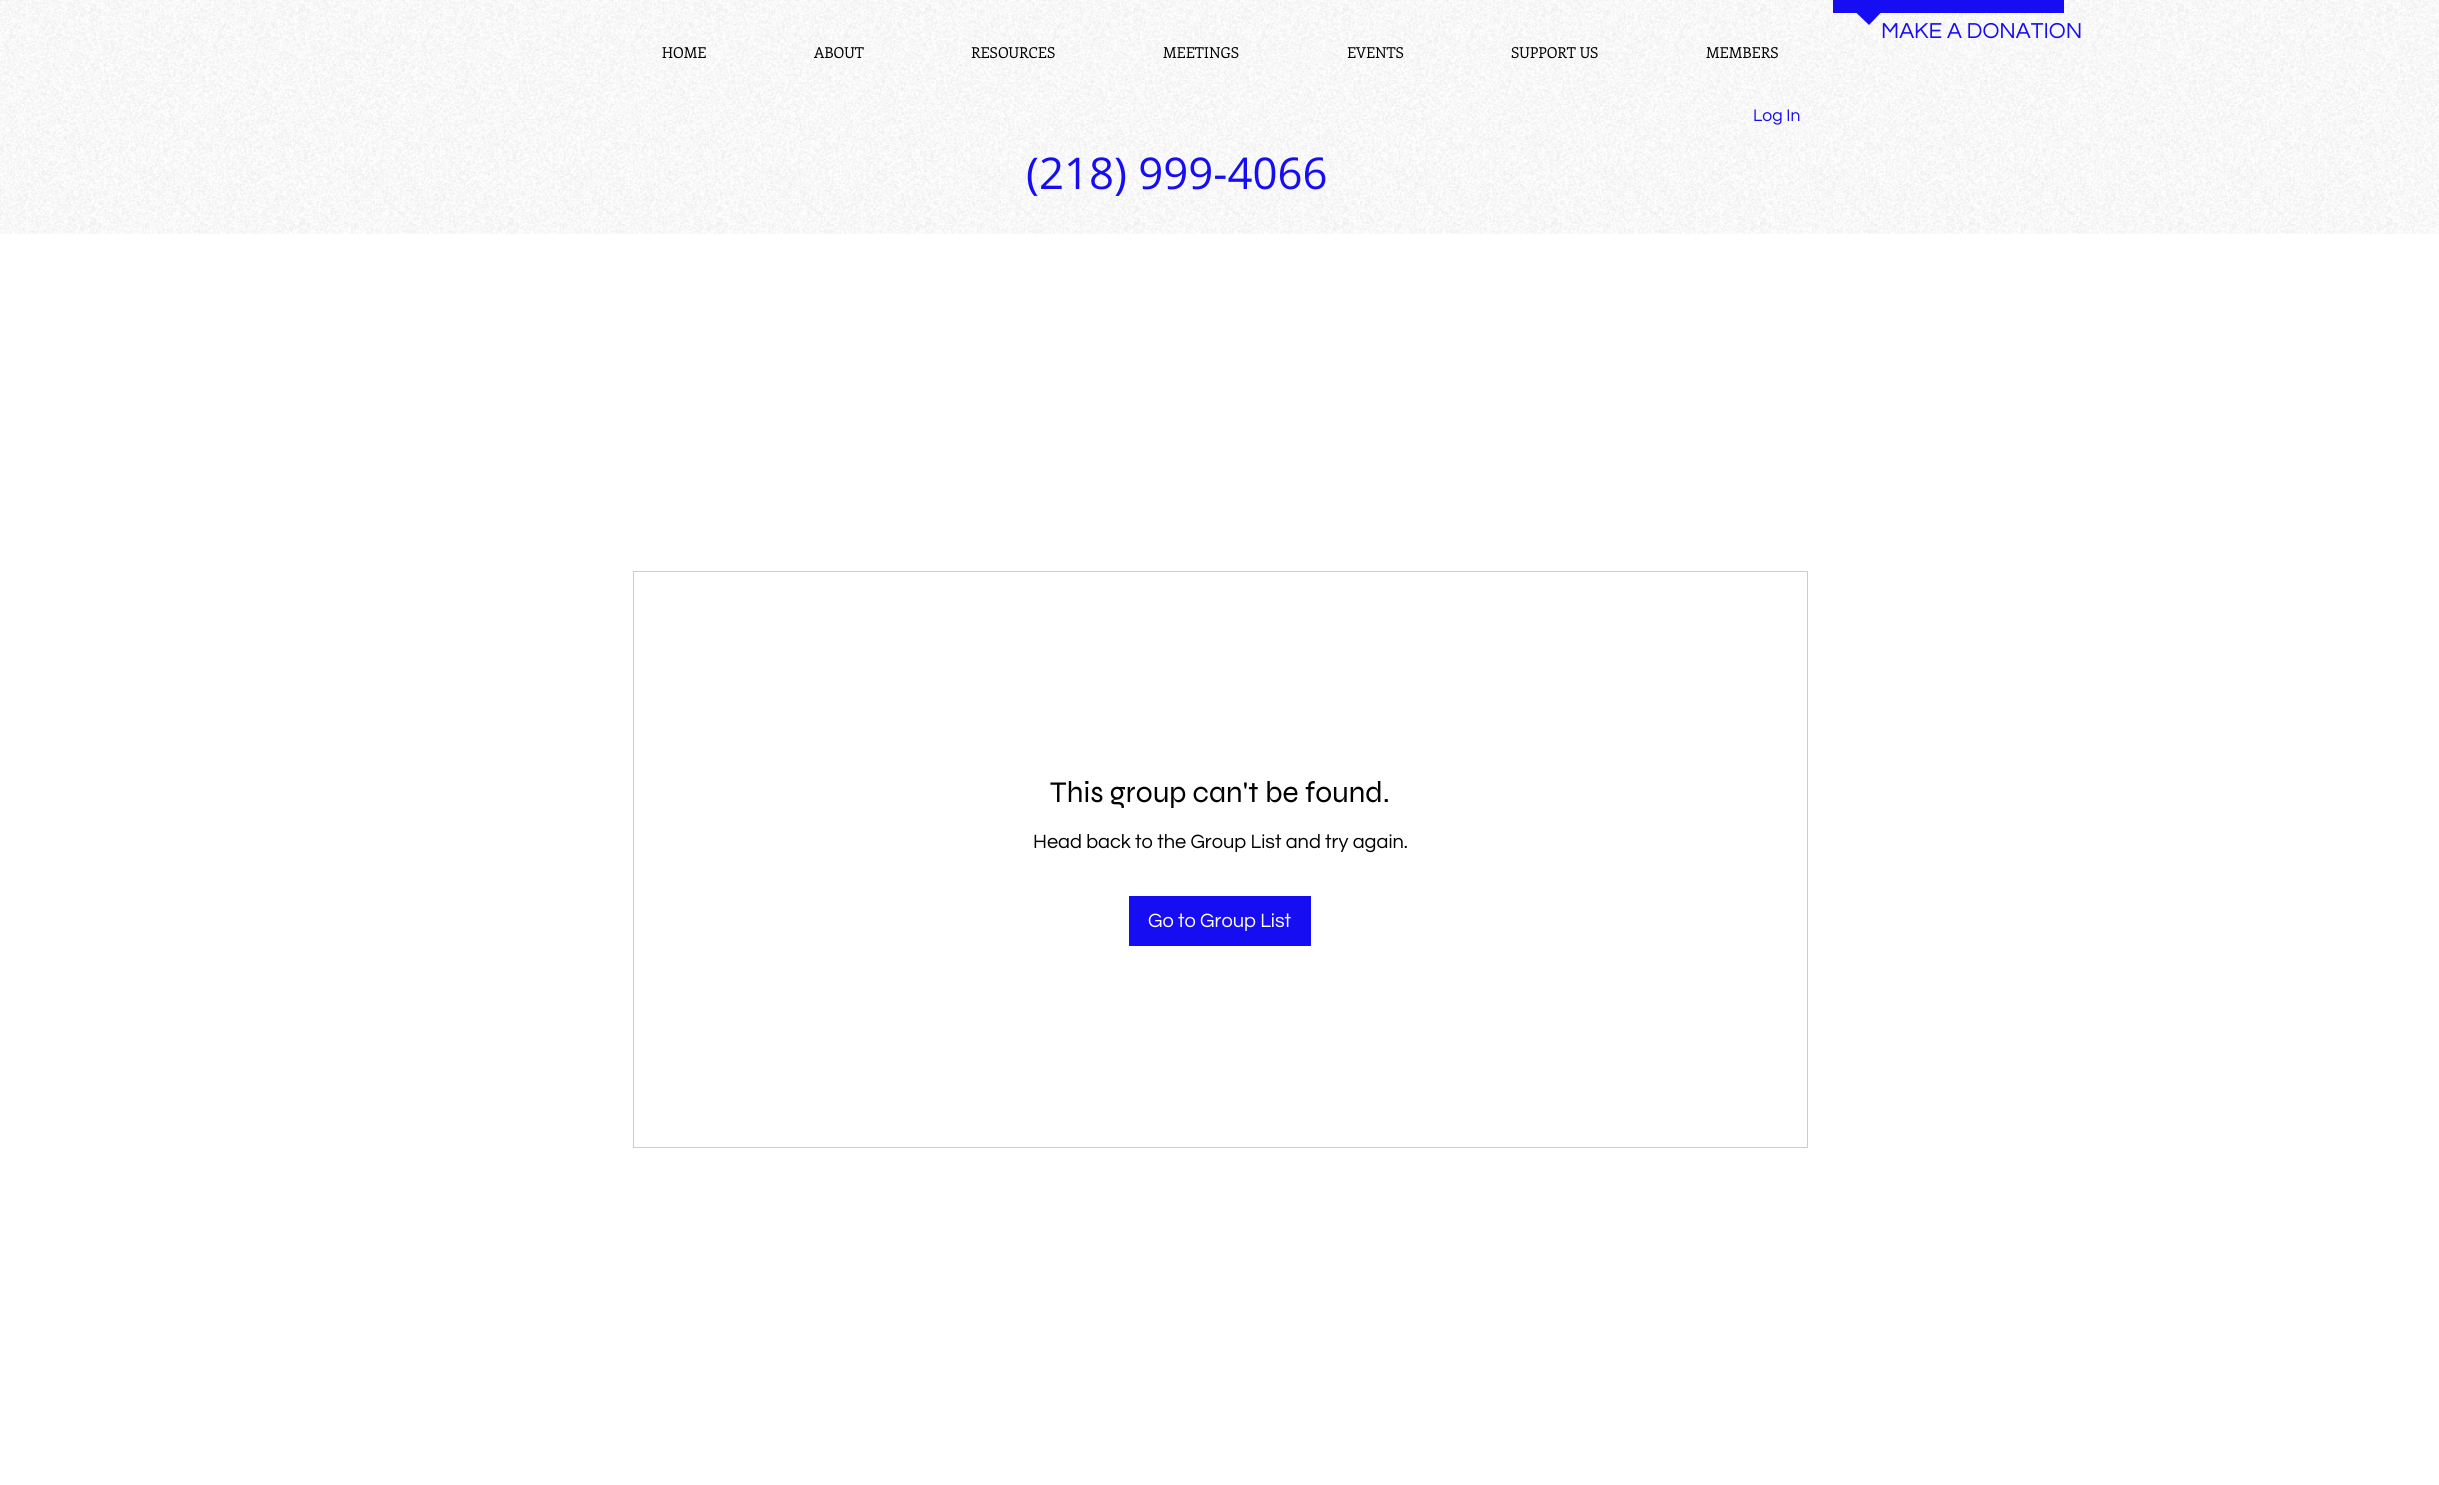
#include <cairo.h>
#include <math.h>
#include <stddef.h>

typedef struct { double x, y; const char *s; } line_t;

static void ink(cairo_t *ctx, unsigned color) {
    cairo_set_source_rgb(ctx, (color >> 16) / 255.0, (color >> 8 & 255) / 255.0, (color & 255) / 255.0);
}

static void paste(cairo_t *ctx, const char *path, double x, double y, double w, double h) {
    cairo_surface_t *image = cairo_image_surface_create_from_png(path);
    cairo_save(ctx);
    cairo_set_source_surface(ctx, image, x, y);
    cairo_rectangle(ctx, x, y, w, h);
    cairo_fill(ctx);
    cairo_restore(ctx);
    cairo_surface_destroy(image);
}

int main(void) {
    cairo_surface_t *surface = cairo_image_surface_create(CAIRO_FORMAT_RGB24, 2439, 1485);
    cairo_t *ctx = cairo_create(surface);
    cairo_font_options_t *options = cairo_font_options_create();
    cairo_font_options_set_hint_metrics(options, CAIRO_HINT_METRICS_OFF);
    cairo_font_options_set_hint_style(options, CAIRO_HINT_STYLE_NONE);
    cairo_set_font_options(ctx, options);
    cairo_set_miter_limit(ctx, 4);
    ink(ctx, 0xFFFFFF);
    cairo_paint(ctx);
    paste(ctx, "media/1.png", 0, 0, 2439, 234);
    ink(ctx, 0x170DF2);
    cairo_rectangle(ctx, 1833, 0, 231, 13);
    cairo_fill(ctx);
    cairo_new_path(ctx);
    cairo_move_to(ctx, 1856, 12.5);
    cairo_line_to(ctx, 1881, 12.5);
    cairo_line_to(ctx, 1869, 25);
    cairo_close_path(ctx);
    cairo_fill(ctx);
    cairo_select_font_face(ctx, "Questrial", CAIRO_FONT_SLANT_NORMAL, CAIRO_FONT_WEIGHT_NORMAL);
    cairo_set_font_size(ctx, 22.5);
    cairo_move_to(ctx, 1881, 38);
    cairo_show_text(ctx, "MAKE A DONATION");
    cairo_select_font_face(ctx, "Enriqueta", CAIRO_FONT_SLANT_NORMAL, CAIRO_FONT_WEIGHT_NORMAL);
    cairo_set_font_size(ctx, 15);
    ink(ctx, 0x000000);
    {
        static const line_t items[] = {
            {662, 58, "HOME"},
            {814, 58, "ABOUT"},
            {971, 58, "RESOURCES"},
            {1163, 58, "MEETINGS"},
            {1347, 58, "EVENTS"},
            {1511, 58, "SUPPORT US"},
            {1706, 58, "MEMBERS"},
        };
        for (size_t i = 0; i < sizeof items / sizeof *items; i++) {
            cairo_move_to(ctx, items[i].x, items[i].y);
            cairo_show_text(ctx, items[i].s);
        }
    }
    cairo_select_font_face(ctx, "Questrial", CAIRO_FONT_SLANT_NORMAL, CAIRO_FONT_WEIGHT_NORMAL);
    cairo_set_font_size(ctx, 17.5);
    ink(ctx, 0x170DF2);
    cairo_move_to(ctx, 1753, 121);
    cairo_show_text(ctx, "Log In");
    cairo_select_font_face(ctx, "Open Sans", CAIRO_FONT_SLANT_NORMAL, CAIRO_FONT_WEIGHT_NORMAL);
    cairo_set_font_size(ctx, 43.75);
    cairo_move_to(ctx, 1026, 189);
    cairo_show_text(ctx, "(218) 999-4066");
    cairo_rectangle(ctx, 633.5, 571.5, 1174, 576);
    ink(ctx, 0xCCCCCC);
    cairo_set_line_width(ctx, 1);
    cairo_stroke(ctx);
    cairo_select_font_face(ctx, "Syne", CAIRO_FONT_SLANT_NORMAL, CAIRO_FONT_WEIGHT_NORMAL);
    cairo_set_font_size(ctx, 30);
    ink(ctx, 0x000000);
    cairo_move_to(ctx, 1050, 802);
    cairo_show_text(ctx, "This group can't be found.");
    cairo_select_font_face(ctx, "Questrial", CAIRO_FONT_SLANT_NORMAL, CAIRO_FONT_WEIGHT_NORMAL);
    cairo_set_font_size(ctx, 20);
    cairo_move_to(ctx, 1033, 848);
    cairo_show_text(ctx, "Head back to the Group List and try again.");
    ink(ctx, 0x170DF2);
    cairo_rectangle(ctx, 1129, 896, 182, 50);
    cairo_fill(ctx);
    ink(ctx, 0xFFFFFF);
    cairo_move_to(ctx, 1148, 927);
    cairo_show_text(ctx, "Go to Group List");
    cairo_surface_write_to_png(surface, "image.png");
    cairo_font_options_destroy(options);
    cairo_destroy(ctx);
    cairo_surface_destroy(surface);
    return 0;
}
